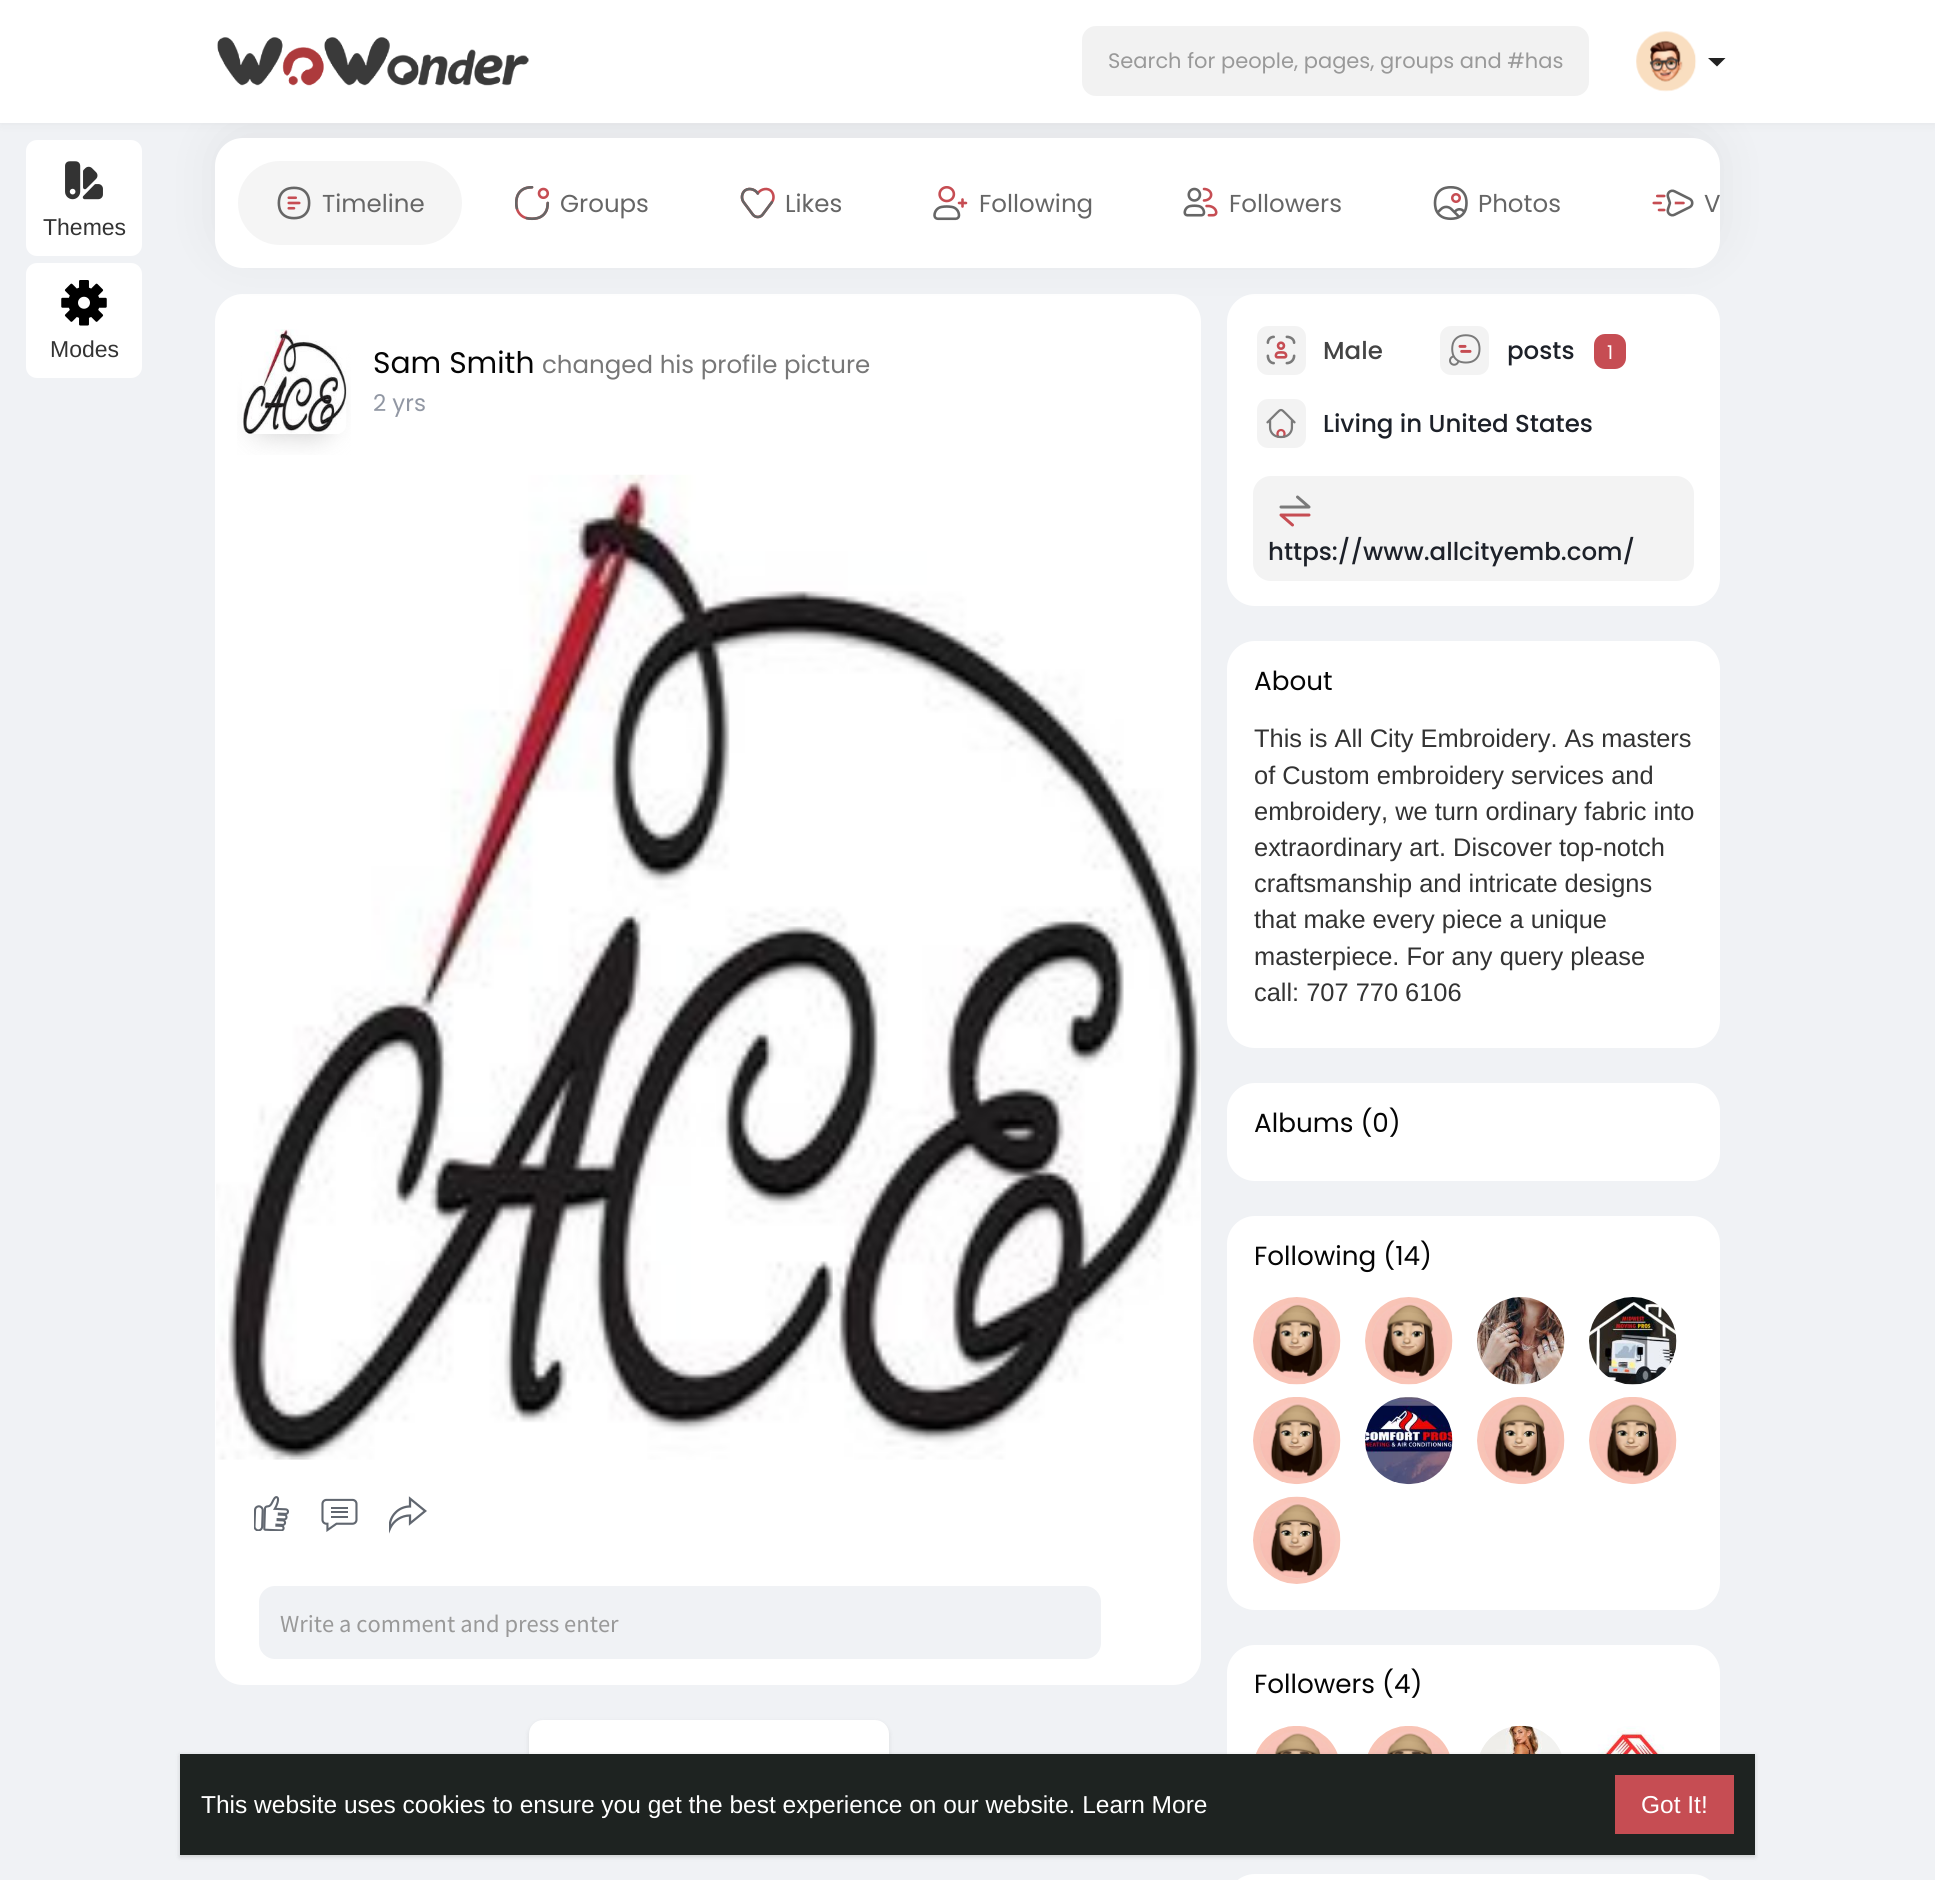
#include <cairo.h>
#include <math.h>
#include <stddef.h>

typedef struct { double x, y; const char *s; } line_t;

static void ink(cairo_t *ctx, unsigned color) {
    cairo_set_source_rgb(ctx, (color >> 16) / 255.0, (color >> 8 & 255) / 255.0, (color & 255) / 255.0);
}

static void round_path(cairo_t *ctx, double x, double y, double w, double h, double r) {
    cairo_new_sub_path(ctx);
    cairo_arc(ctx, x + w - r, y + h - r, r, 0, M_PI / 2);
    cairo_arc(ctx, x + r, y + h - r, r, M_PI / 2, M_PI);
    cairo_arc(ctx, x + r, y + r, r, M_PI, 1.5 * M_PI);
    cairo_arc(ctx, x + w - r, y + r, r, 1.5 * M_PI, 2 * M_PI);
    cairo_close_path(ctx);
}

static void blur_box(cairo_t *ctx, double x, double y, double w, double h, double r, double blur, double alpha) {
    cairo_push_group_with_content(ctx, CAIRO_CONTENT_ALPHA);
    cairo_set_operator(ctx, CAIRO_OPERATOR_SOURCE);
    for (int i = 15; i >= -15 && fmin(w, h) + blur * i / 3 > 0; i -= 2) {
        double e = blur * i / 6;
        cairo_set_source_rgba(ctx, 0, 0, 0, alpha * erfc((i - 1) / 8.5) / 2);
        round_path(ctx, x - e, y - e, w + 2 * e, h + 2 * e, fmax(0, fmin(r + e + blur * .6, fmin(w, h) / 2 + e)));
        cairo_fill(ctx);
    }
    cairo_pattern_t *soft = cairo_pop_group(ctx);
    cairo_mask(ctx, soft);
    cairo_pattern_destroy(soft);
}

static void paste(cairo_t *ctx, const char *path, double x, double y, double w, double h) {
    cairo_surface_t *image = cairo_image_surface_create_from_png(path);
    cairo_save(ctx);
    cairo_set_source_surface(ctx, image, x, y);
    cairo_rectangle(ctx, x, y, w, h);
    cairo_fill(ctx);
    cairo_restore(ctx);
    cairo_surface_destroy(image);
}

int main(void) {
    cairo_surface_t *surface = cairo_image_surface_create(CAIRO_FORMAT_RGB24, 1935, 1880);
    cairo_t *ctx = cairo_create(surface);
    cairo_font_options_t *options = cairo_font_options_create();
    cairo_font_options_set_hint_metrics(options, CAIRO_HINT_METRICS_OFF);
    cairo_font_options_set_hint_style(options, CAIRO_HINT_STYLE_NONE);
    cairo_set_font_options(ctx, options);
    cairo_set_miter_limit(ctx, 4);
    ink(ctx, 0xF0F2F5);
    cairo_paint(ctx);
    ink(ctx, 0xFFFFFF);
    round_path(ctx, 215, 294, 986, 1391, 28);
    cairo_fill(ctx);
    paste(ctx, "media/12.png", 237, 348, 114, 107);
    paste(ctx, "media/11.png", 242, 329, 105, 105);
    round_path(ctx, 1227, 294, 493, 312, 28);
    cairo_fill(ctx);
    ink(ctx, 0xF3F3F3);
    round_path(ctx, 1257, 326, 49, 49, 11);
    cairo_fill(ctx);
    paste(ctx, "media/17.png", 1266, 335, 30, 30);
    round_path(ctx, 1440, 326, 49, 49, 11);
    cairo_fill(ctx);
    paste(ctx, "media/18.png", 1449, 334, 32, 32);
    ink(ctx, 0xC64D53);
    round_path(ctx, 1594, 334, 32, 35, 11);
    cairo_fill(ctx);
    ink(ctx, 0x000000);
    blur_box(ctx, 215, 128, 1505, 129, 28, 26, 0.06);
    ink(ctx, 0xFFFFFF);
    round_path(ctx, 215, 138, 1505, 130, 28);
    cairo_fill(ctx);
    ink(ctx, 0x000000);
    blur_box(ctx, 0, 2, 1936, 122, 0, 5, 0.05);
    ink(ctx, 0xFFFFFF);
    cairo_rectangle(ctx, 0, 0, 1935, 123);
    cairo_fill(ctx);
    paste(ctx, "media/1.png", 217, 37, 312, 49);
    ink(ctx, 0xF2F2F2);
    round_path(ctx, 1082, 26, 507, 70, 14);
    cairo_fill(ctx);
    cairo_select_font_face(ctx, "Poppins", CAIRO_FONT_SLANT_NORMAL, CAIRO_FONT_WEIGHT_NORMAL);
    cairo_set_font_size(ctx, 21);
    ink(ctx, 0x999999);
    cairo_move_to(ctx, 1108, 68);
    cairo_show_text(ctx, "Search for people, pages, groups and #has");
    paste(ctx, "media/2.png", 1636, 31, 61, 61);
    ink(ctx, 0x222222);
    cairo_new_path(ctx);
    cairo_move_to(ctx, 1708, 58);
    cairo_line_to(ctx, 1725.5, 58);
    cairo_line_to(ctx, 1717, 66.5);
    cairo_close_path(ctx);
    cairo_fill(ctx);
    ink(ctx, 0xFFFFFF);
    round_path(ctx, 26, 140, 116, 116, 11);
    cairo_fill(ctx);
    paste(ctx, "media/3.png", 65, 161, 38, 39);
    cairo_select_font_face(ctx, "Liberation Sans", CAIRO_FONT_SLANT_NORMAL, CAIRO_FONT_WEIGHT_NORMAL);
    cairo_set_font_size(ctx, 23);
    ink(ctx, 0x333333);
    cairo_move_to(ctx, 43, 235);
    cairo_show_text(ctx, "Themes");
    ink(ctx, 0xF5F5F5);
    round_path(ctx, 238, 161, 224, 84, 42);
    cairo_fill(ctx);
    paste(ctx, "media/4.png", 277, 186, 34, 34);
    cairo_select_font_face(ctx, "Poppins", CAIRO_FONT_SLANT_NORMAL, CAIRO_FONT_WEIGHT_NORMAL);
    cairo_set_font_size(ctx, 24.5);
    ink(ctx, 0x666666);
    cairo_move_to(ctx, 322, 212);
    cairo_show_text(ctx, "Timeline");
    paste(ctx, "media/5.png", 515, 186, 35, 35);
    cairo_move_to(ctx, 560, 212);
    cairo_show_text(ctx, "Groups");
    paste(ctx, "media/6.png", 740, 187, 35, 32);
    cairo_move_to(ctx, 785, 212);
    cairo_show_text(ctx, "Likes");
    paste(ctx, "media/7.png", 933, 186, 35, 35);
    cairo_move_to(ctx, 979, 212);
    cairo_show_text(ctx, "Following");
    paste(ctx, "media/8.png", 1183, 187, 35, 30);
    cairo_move_to(ctx, 1229, 212);
    cairo_show_text(ctx, "Followers");
    paste(ctx, "media/9.png", 1433, 186, 35, 35);
    cairo_move_to(ctx, 1478, 212);
    cairo_show_text(ctx, "Photos");
    paste(ctx, "media/10.png", 1652, 189, 42, 28);
    cairo_move_to(ctx, 1704, 212);
    cairo_show_text(ctx, "V");
    cairo_set_font_size(ctx, 29.75);
    ink(ctx, 0x050505);
    cairo_move_to(ctx, 373, 373);
    cairo_show_text(ctx, "Sam Smith");
    cairo_set_font_size(ctx, 24.5);
    ink(ctx, 0x777777);
    cairo_move_to(ctx, 542, 373);
    cairo_show_text(ctx, "changed his profile picture");
    cairo_set_font_size(ctx, 23);
    ink(ctx, 0x9197A3);
    cairo_move_to(ctx, 373, 411);
    cairo_show_text(ctx, "2 yrs");
    paste(ctx, "media/13.png", 216, 474, 985, 986);
    paste(ctx, "media/14.png", 254, 1496, 35, 35);
    paste(ctx, "media/15.png", 321, 1498, 37, 34);
    paste(ctx, "media/16.png", 389, 1496, 38, 38);
    ink(ctx, 0xF0F2F5);
    round_path(ctx, 259, 1586, 842, 73, 16);
    cairo_fill(ctx);
    cairo_select_font_face(ctx, "Source Sans Pro", CAIRO_FONT_SLANT_NORMAL, CAIRO_FONT_WEIGHT_NORMAL);
    cairo_set_font_size(ctx, 24.5);
    ink(ctx, 0x999999);
    cairo_move_to(ctx, 280, 1632);
    cairo_show_text(ctx, "Write a comment and press enter");
    ink(ctx, 0x000000);
    blur_box(ctx, 529, 1722, 360, 77, 14, 2.5, 0.1);
    ink(ctx, 0xFFFFFF);
    round_path(ctx, 529, 1720, 360, 77, 14);
    cairo_fill(ctx);
    cairo_select_font_face(ctx, "Poppins Medium", CAIRO_FONT_SLANT_NORMAL, CAIRO_FONT_WEIGHT_NORMAL);
    ink(ctx, 0x444444);
    cairo_move_to(ctx, 1323, 359);
    cairo_show_text(ctx, "Male");
    ink(ctx, 0x1D2129);
    cairo_move_to(ctx, 1507, 359);
    cairo_show_text(ctx, "posts");
    cairo_select_font_face(ctx, "Poppins", CAIRO_FONT_SLANT_NORMAL, CAIRO_FONT_WEIGHT_NORMAL);
    cairo_set_font_size(ctx, 19);
    ink(ctx, 0xFFFFFF);
    cairo_move_to(ctx, 1607, 359);
    cairo_show_text(ctx, "1");
    ink(ctx, 0xF3F3F3);
    round_path(ctx, 1257, 399, 49, 49, 11);
    cairo_fill(ctx);
    paste(ctx, "media/19.png", 1266, 408, 30, 31);
    cairo_select_font_face(ctx, "Poppins Medium", CAIRO_FONT_SLANT_NORMAL, CAIRO_FONT_WEIGHT_NORMAL);
    cairo_set_font_size(ctx, 24.5);
    ink(ctx, 0x1D2129);
    cairo_move_to(ctx, 1323, 432);
    cairo_show_text(ctx, "Living in United States");
    ink(ctx, 0xF3F3F3);
    round_path(ctx, 1253, 476, 441, 105, 18);
    cairo_fill(ctx);
    cairo_new_path(ctx);
    cairo_move_to(ctx, 1281, 507);
    cairo_line_to(ctx, 1309, 507);
    cairo_line_to(ctx, 1297.5, 497);
    ink(ctx, 0x7A7A7A);
    cairo_set_line_width(ctx, 3);
    cairo_set_line_cap(ctx, CAIRO_LINE_CAP_ROUND);
    cairo_set_line_join(ctx, CAIRO_LINE_JOIN_ROUND);
    cairo_stroke(ctx);
    cairo_new_path(ctx);
    cairo_move_to(ctx, 1309, 515);
    cairo_line_to(ctx, 1281, 515);
    cairo_line_to(ctx, 1292.5, 525);
    ink(ctx, 0xC64D53);
    cairo_stroke(ctx);
    ink(ctx, 0x1D2129);
    cairo_move_to(ctx, 1268, 560);
    cairo_show_text(ctx, "https://www.allcityemb.com/");
    ink(ctx, 0xFFFFFF);
    round_path(ctx, 1227, 641, 493, 407, 28);
    cairo_fill(ctx);
    cairo_select_font_face(ctx, "Poppins", CAIRO_FONT_SLANT_NORMAL, CAIRO_FONT_WEIGHT_NORMAL);
    cairo_set_font_size(ctx, 26.25);
    ink(ctx, 0x050505);
    cairo_move_to(ctx, 1254, 690);
    cairo_show_text(ctx, "About");
    cairo_select_font_face(ctx, "Liberation Sans", CAIRO_FONT_SLANT_NORMAL, CAIRO_FONT_WEIGHT_NORMAL);
    cairo_set_font_size(ctx, 25.4);
    ink(ctx, 0x333333);
    {
        static const line_t items[] = {
            {1254, 747, "This is All City Embroidery. As masters"},
            {1254, 784, "of Custom embroidery services and"},
            {1254, 820, "embroidery, we turn ordinary fabric into"},
            {1254, 856, "extraordinary art. Discover top-notch"},
            {1254, 892, "craftsmanship and intricate designs"},
            {1254, 928, "that make every piece a unique"},
            {1254, 965, "masterpiece. For any query please"},
            {1254, 1001, "call: 707 770 6106"},
        };
        for (size_t i = 0; i < sizeof items / sizeof *items; i++) {
            cairo_move_to(ctx, items[i].x, items[i].y);
            cairo_show_text(ctx, items[i].s);
        }
    }
    ink(ctx, 0xFFFFFF);
    round_path(ctx, 1227, 1083, 493, 98, 28);
    cairo_fill(ctx);
    cairo_select_font_face(ctx, "Poppins", CAIRO_FONT_SLANT_NORMAL, CAIRO_FONT_WEIGHT_NORMAL);
    cairo_set_font_size(ctx, 26.25);
    ink(ctx, 0x050505);
    cairo_move_to(ctx, 1254, 1132);
    cairo_show_text(ctx, "Albums (0)");
    ink(ctx, 0xFFFFFF);
    round_path(ctx, 1227, 1216, 493, 394, 28);
    cairo_fill(ctx);
    ink(ctx, 0x050505);
    cairo_move_to(ctx, 1254, 1265);
    cairo_show_text(ctx, "Following (14)");
    paste(ctx, "media/20.png", 1253, 1297, 88, 88);
    paste(ctx, "media/21.png", 1365, 1297, 88, 88);
    paste(ctx, "media/22.png", 1477, 1297, 88, 88);
    paste(ctx, "media/23.png", 1589, 1297, 88, 88);
    paste(ctx, "media/24.png", 1253, 1397, 88, 88);
    paste(ctx, "media/25.png", 1365, 1397, 88, 88);
    paste(ctx, "media/26.png", 1477, 1396, 88, 89);
    paste(ctx, "media/27.png", 1589, 1397, 88, 88);
    paste(ctx, "media/28.png", 1253, 1496, 88, 88);
    ink(ctx, 0xFFFFFF);
    round_path(ctx, 1227, 1645, 493, 194, 28);
    cairo_fill(ctx);
    ink(ctx, 0x050505);
    cairo_move_to(ctx, 1254, 1693);
    cairo_show_text(ctx, "Followers (4)");
    paste(ctx, "media/29.png", 1256, 1726, 82, 28);
    paste(ctx, "media/30.png", 1368, 1726, 82, 28);
    paste(ctx, "media/31.png", 1480, 1725, 82, 29);
    paste(ctx, "media/32.png", 1592, 1726, 78, 28);
    ink(ctx, 0xFFFFFF);
    round_path(ctx, 1227, 1874, 493, 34, 28);
    cairo_fill(ctx);
    round_path(ctx, 26, 263, 116, 115, 11);
    cairo_fill(ctx);
    paste(ctx, "media/33.png", 61, 280, 46, 46);
    cairo_select_font_face(ctx, "Liberation Sans", CAIRO_FONT_SLANT_NORMAL, CAIRO_FONT_WEIGHT_NORMAL);
    cairo_set_font_size(ctx, 23);
    ink(ctx, 0x333333);
    cairo_move_to(ctx, 50, 357);
    cairo_show_text(ctx, "Modes");
    ink(ctx, 0x000000);
    blur_box(ctx, 180, 1755, 1575, 102, 0, 2, 0.06);
    blur_box(ctx, 180, 1755, 1575, 102, 0, 2.5, 0.1);
    ink(ctx, 0x1E2321);
    cairo_rectangle(ctx, 180, 1754, 1575, 101);
    cairo_fill(ctx);
    cairo_set_font_size(ctx, 24.5);
    ink(ctx, 0xFFFFFF);
    cairo_move_to(ctx, 201, 1813);
    cairo_show_text(ctx, "This website uses cookies to ensure you get the best experience on our website. Learn More");
    ink(ctx, 0xC64D53);
    cairo_rectangle(ctx, 1615, 1775, 119, 59);
    cairo_fill(ctx);
    ink(ctx, 0xFFFFFF);
    cairo_move_to(ctx, 1641, 1813);
    cairo_show_text(ctx, "Got It!");
    cairo_surface_write_to_png(surface, "image.png");
    cairo_font_options_destroy(options);
    cairo_destroy(ctx);
    cairo_surface_destroy(surface);
    return 0;
}
